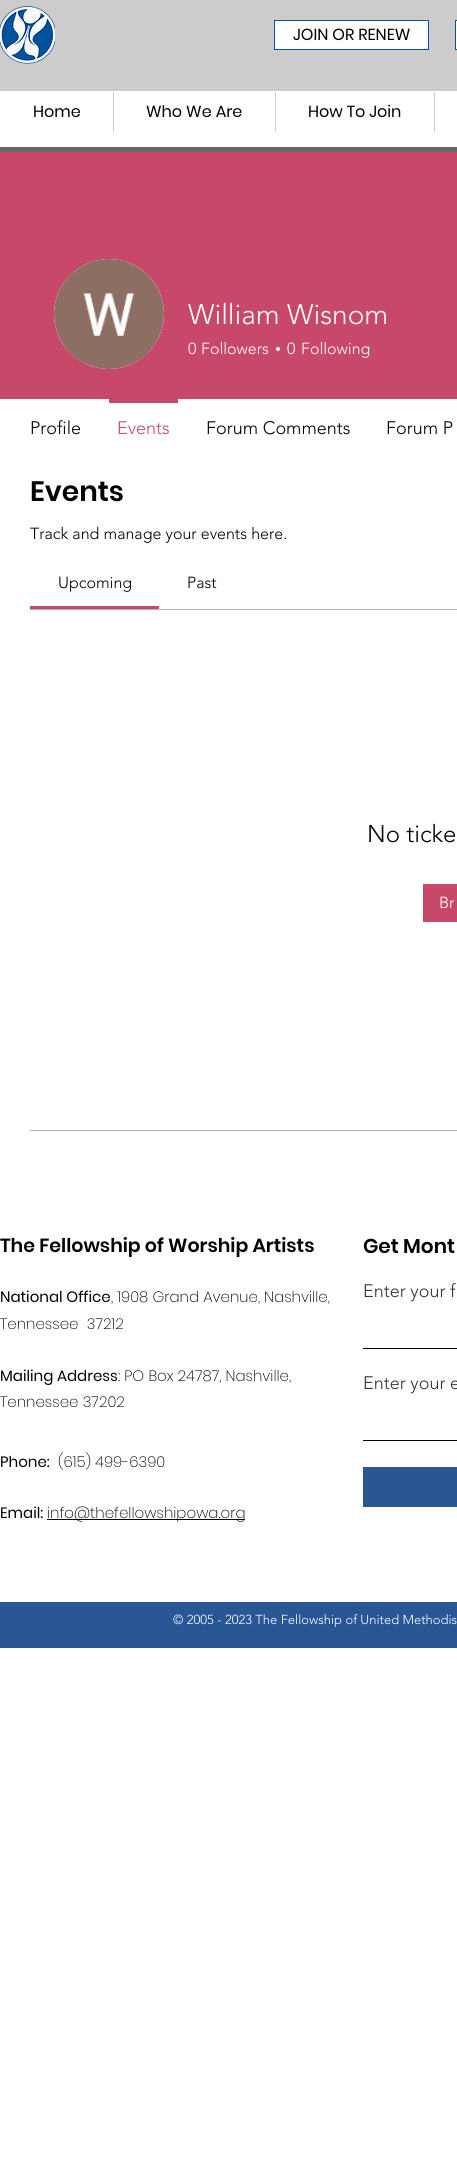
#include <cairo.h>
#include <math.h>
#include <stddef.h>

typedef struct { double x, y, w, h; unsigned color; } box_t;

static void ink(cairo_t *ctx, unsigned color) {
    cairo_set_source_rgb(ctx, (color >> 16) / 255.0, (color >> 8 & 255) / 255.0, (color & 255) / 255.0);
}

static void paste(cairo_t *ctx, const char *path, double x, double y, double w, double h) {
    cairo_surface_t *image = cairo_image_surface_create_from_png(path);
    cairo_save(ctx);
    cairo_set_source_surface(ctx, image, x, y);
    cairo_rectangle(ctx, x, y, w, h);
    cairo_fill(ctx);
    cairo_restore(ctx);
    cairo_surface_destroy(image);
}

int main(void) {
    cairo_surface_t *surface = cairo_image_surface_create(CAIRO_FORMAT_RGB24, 457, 2170);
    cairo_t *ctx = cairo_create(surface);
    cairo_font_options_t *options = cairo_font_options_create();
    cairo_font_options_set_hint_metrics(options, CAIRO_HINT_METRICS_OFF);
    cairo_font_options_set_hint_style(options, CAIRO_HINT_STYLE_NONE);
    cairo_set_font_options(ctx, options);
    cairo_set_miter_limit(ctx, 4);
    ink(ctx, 0xFFFFFF);
    cairo_paint(ctx);
    ink(ctx, 0xCCCCCC);
    cairo_rectangle(ctx, 0, 0, 457, 91);
    cairo_fill(ctx);
    paste(ctx, "media/1.png", 0, 6, 55, 58);
    ink(ctx, 0xFFFFFF);
    cairo_rectangle(ctx, 274.5, 20.5, 154, 29);
    cairo_fill_preserve(ctx);
    ink(ctx, 0x0155A3);
    cairo_set_line_width(ctx, 1);
    cairo_stroke(ctx);
    cairo_select_font_face(ctx, "Poppins", CAIRO_FONT_SLANT_NORMAL, CAIRO_FONT_WEIGHT_NORMAL);
    cairo_set_font_size(ctx, 16);
    ink(ctx, 0x000000);
    cairo_move_to(ctx, 293, 40);
    cairo_show_text(ctx, "JOIN OR RENEW");
    ink(ctx, 0xFFFFFF);
    cairo_rectangle(ctx, 455.5, 20.5, 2, 29);
    cairo_fill_preserve(ctx);
    ink(ctx, 0x0155A3);
    cairo_stroke(ctx);
    ink(ctx, 0x000000);
    cairo_move_to(ctx, 33, 117);
    cairo_show_text(ctx, "Home");
    ink(ctx, 0xCCCCCC);
    cairo_rectangle(ctx, 113, 92, 1, 40);
    cairo_fill(ctx);
    ink(ctx, 0x000000);
    cairo_move_to(ctx, 146, 117);
    cairo_show_text(ctx, "Who We Are");
    ink(ctx, 0xCCCCCC);
    cairo_rectangle(ctx, 275, 92, 1, 40);
    cairo_fill(ctx);
    ink(ctx, 0x000000);
    cairo_move_to(ctx, 308, 117);
    cairo_show_text(ctx, "How To Join");
    {
        static const box_t items[] = {
            {434, 92, 1, 40, 0xCCCCCC},
            {0, 147, 457, 5, 0x666666},
            {0, 152, 457, 247, 0xC84869},
        };
        for (size_t i = 0; i < sizeof items / sizeof *items; i++) {
            ink(ctx, items[i].color);
            cairo_rectangle(ctx, items[i].x, items[i].y, items[i].w, items[i].h);
            cairo_fill(ctx);
        }
    }
    ink(ctx, 0xD8D8D8);
    cairo_new_path(ctx);
    cairo_arc(ctx, 109, 314, 55, 0, 2 * M_PI);
    cairo_fill(ctx);
    paste(ctx, "media/2.png", 54, 259, 110, 110);
    cairo_select_font_face(ctx, "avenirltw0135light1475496 Light", CAIRO_FONT_SLANT_NORMAL, CAIRO_FONT_WEIGHT_NORMAL);
    cairo_set_font_size(ctx, 28);
    ink(ctx, 0xFFFFFF);
    cairo_move_to(ctx, 188, 324);
    cairo_show_text(ctx, "William Wisnom");
    cairo_set_font_size(ctx, 16);
    cairo_move_to(ctx, 188, 354);
    cairo_show_text(ctx, "0");
    cairo_move_to(ctx, 201, 354);
    cairo_show_text(ctx, "Followers");
    cairo_new_path(ctx);
    cairo_arc(ctx, 278, 349, 2, 0, 2 * M_PI);
    cairo_fill(ctx);
    cairo_move_to(ctx, 287, 354);
    cairo_show_text(ctx, "0");
    cairo_move_to(ctx, 301, 354);
    cairo_show_text(ctx, "Following");
    cairo_set_font_size(ctx, 18);
    ink(ctx, 0x000000);
    cairo_move_to(ctx, 30, 434);
    cairo_show_text(ctx, "Profile");
    ink(ctx, 0xC84869);
    cairo_rectangle(ctx, 109, 399, 69, 4);
    cairo_fill(ctx);
    cairo_move_to(ctx, 117, 434);
    cairo_show_text(ctx, "Events");
    ink(ctx, 0x000000);
    cairo_move_to(ctx, 206, 434);
    cairo_show_text(ctx, "Forum Comments");
    cairo_move_to(ctx, 386, 434);
    cairo_show_text(ctx, "Forum P");
    cairo_select_font_face(ctx, "Poppins SemiBold", CAIRO_FONT_SLANT_NORMAL, CAIRO_FONT_WEIGHT_NORMAL);
    cairo_set_font_size(ctx, 28);
    cairo_move_to(ctx, 30, 501);
    cairo_show_text(ctx, "Events");
    cairo_select_font_face(ctx, "avenirltw0135light1475496 Light", CAIRO_FONT_SLANT_NORMAL, CAIRO_FONT_WEIGHT_NORMAL);
    cairo_set_font_size(ctx, 16);
    cairo_move_to(ctx, 30, 539);
    cairo_show_text(ctx, "Track and manage your events here.");
    ink(ctx, 0xC84869);
    cairo_rectangle(ctx, 30, 606, 129, 3);
    cairo_fill(ctx);
    ink(ctx, 0x000000);
    cairo_move_to(ctx, 58, 588);
    cairo_show_text(ctx, "Upcoming");
    cairo_move_to(ctx, 187, 588);
    cairo_show_text(ctx, "Past");
    ink(ctx, 0xB3B3B3);
    cairo_rectangle(ctx, 30, 609, 427, 1);
    cairo_fill(ctx);
    cairo_set_font_size(ctx, 24);
    ink(ctx, 0x000000);
    cairo_move_to(ctx, 367, 842);
    cairo_show_text(ctx, "No ticke");
    ink(ctx, 0xC84869);
    cairo_rectangle(ctx, 423, 884, 34, 38);
    cairo_fill(ctx);
    cairo_set_font_size(ctx, 16);
    ink(ctx, 0xFFFFFF);
    cairo_move_to(ctx, 439, 908);
    cairo_show_text(ctx, "Br");
    ink(ctx, 0xB3B3B3);
    cairo_rectangle(ctx, 30, 1130, 427, 1);
    cairo_fill(ctx);
    cairo_select_font_face(ctx, "Poppins SemiBold", CAIRO_FONT_SLANT_NORMAL, CAIRO_FONT_WEIGHT_NORMAL);
    cairo_set_font_size(ctx, 19);
    ink(ctx, 0x000000);
    cairo_move_to(ctx, 0, 1252);
    cairo_show_text(ctx, "The Fellowship of Worship Artists");
    cairo_select_font_face(ctx, "Poppins", CAIRO_FONT_SLANT_NORMAL, CAIRO_FONT_WEIGHT_NORMAL);
    cairo_set_font_size(ctx, 15);
    cairo_move_to(ctx, 0, 1302);
    cairo_show_text(ctx, "National Office");
    cairo_select_font_face(ctx, "Poppins ExtraLight", CAIRO_FONT_SLANT_NORMAL, CAIRO_FONT_WEIGHT_NORMAL);
    cairo_move_to(ctx, 111, 1302);
    cairo_show_text(ctx, ", 1908 Grand Avenue, Nashville,");
    cairo_move_to(ctx, 0, 1329);
    cairo_show_text(ctx, "Tennessee  37212");
    cairo_select_font_face(ctx, "Poppins", CAIRO_FONT_SLANT_NORMAL, CAIRO_FONT_WEIGHT_NORMAL);
    cairo_move_to(ctx, 0, 1381);
    cairo_show_text(ctx, "Mailing Address");
    cairo_select_font_face(ctx, "Poppins ExtraLight", CAIRO_FONT_SLANT_NORMAL, CAIRO_FONT_WEIGHT_NORMAL);
    cairo_move_to(ctx, 118, 1381);
    cairo_show_text(ctx, ": PO Box 24787, Nashville,");
    cairo_move_to(ctx, 0, 1407);
    cairo_show_text(ctx, "Tennessee 37202");
    cairo_select_font_face(ctx, "Poppins", CAIRO_FONT_SLANT_NORMAL, CAIRO_FONT_WEIGHT_NORMAL);
    cairo_move_to(ctx, 0, 1467);
    cairo_show_text(ctx, "Phone:");
    cairo_select_font_face(ctx, "Poppins ExtraLight", CAIRO_FONT_SLANT_NORMAL, CAIRO_FONT_WEIGHT_NORMAL);
    cairo_move_to(ctx, 58, 1467);
    cairo_show_text(ctx, "(615) 499-6390");
    cairo_select_font_face(ctx, "Poppins", CAIRO_FONT_SLANT_NORMAL, CAIRO_FONT_WEIGHT_NORMAL);
    cairo_move_to(ctx, 0, 1518);
    cairo_show_text(ctx, "Email:");
    cairo_rectangle(ctx, 47, 1519, 198, 1);
    cairo_fill(ctx);
    cairo_select_font_face(ctx, "Poppins ExtraLight", CAIRO_FONT_SLANT_NORMAL, CAIRO_FONT_WEIGHT_NORMAL);
    cairo_move_to(ctx, 47, 1518);
    cairo_show_text(ctx, "info@thefellowshipowa.org");
    cairo_select_font_face(ctx, "Poppins SemiBold", CAIRO_FONT_SLANT_NORMAL, CAIRO_FONT_WEIGHT_NORMAL);
    cairo_set_font_size(ctx, 20);
    cairo_move_to(ctx, 363, 1253);
    cairo_show_text(ctx, "Get Mont");
    cairo_select_font_face(ctx, "avenirltw0135light1475496 Light", CAIRO_FONT_SLANT_NORMAL, CAIRO_FONT_WEIGHT_NORMAL);
    cairo_set_font_size(ctx, 18);
    ink(ctx, 0x333333);
    cairo_move_to(ctx, 363, 1297);
    cairo_show_text(ctx, "Enter your f");
    ink(ctx, 0x000000);
    cairo_rectangle(ctx, 363, 1348, 94, 1);
    cairo_fill(ctx);
    ink(ctx, 0x333333);
    cairo_move_to(ctx, 363, 1389);
    cairo_show_text(ctx, "Enter your e");
    {
        static const box_t items[] = {
            {363, 1440, 94, 1, 0x000000},
            {363, 1467, 94, 40, 0x295695},
            {0, 1602, 457, 46, 0x295695},
        };
        for (size_t i = 0; i < sizeof items / sizeof *items; i++) {
            ink(ctx, items[i].color);
            cairo_rectangle(ctx, items[i].x, items[i].y, items[i].w, items[i].h);
            cairo_fill(ctx);
        }
    }
    cairo_set_font_size(ctx, 13);
    ink(ctx, 0xFFFFFF);
    cairo_move_to(ctx, 173, 1624);
    cairo_show_text(ctx, "© 2005 - 2023 The Fellowship of United Methodis");
    cairo_surface_write_to_png(surface, "image.png");
    cairo_font_options_destroy(options);
    cairo_destroy(ctx);
    cairo_surface_destroy(surface);
    return 0;
}
